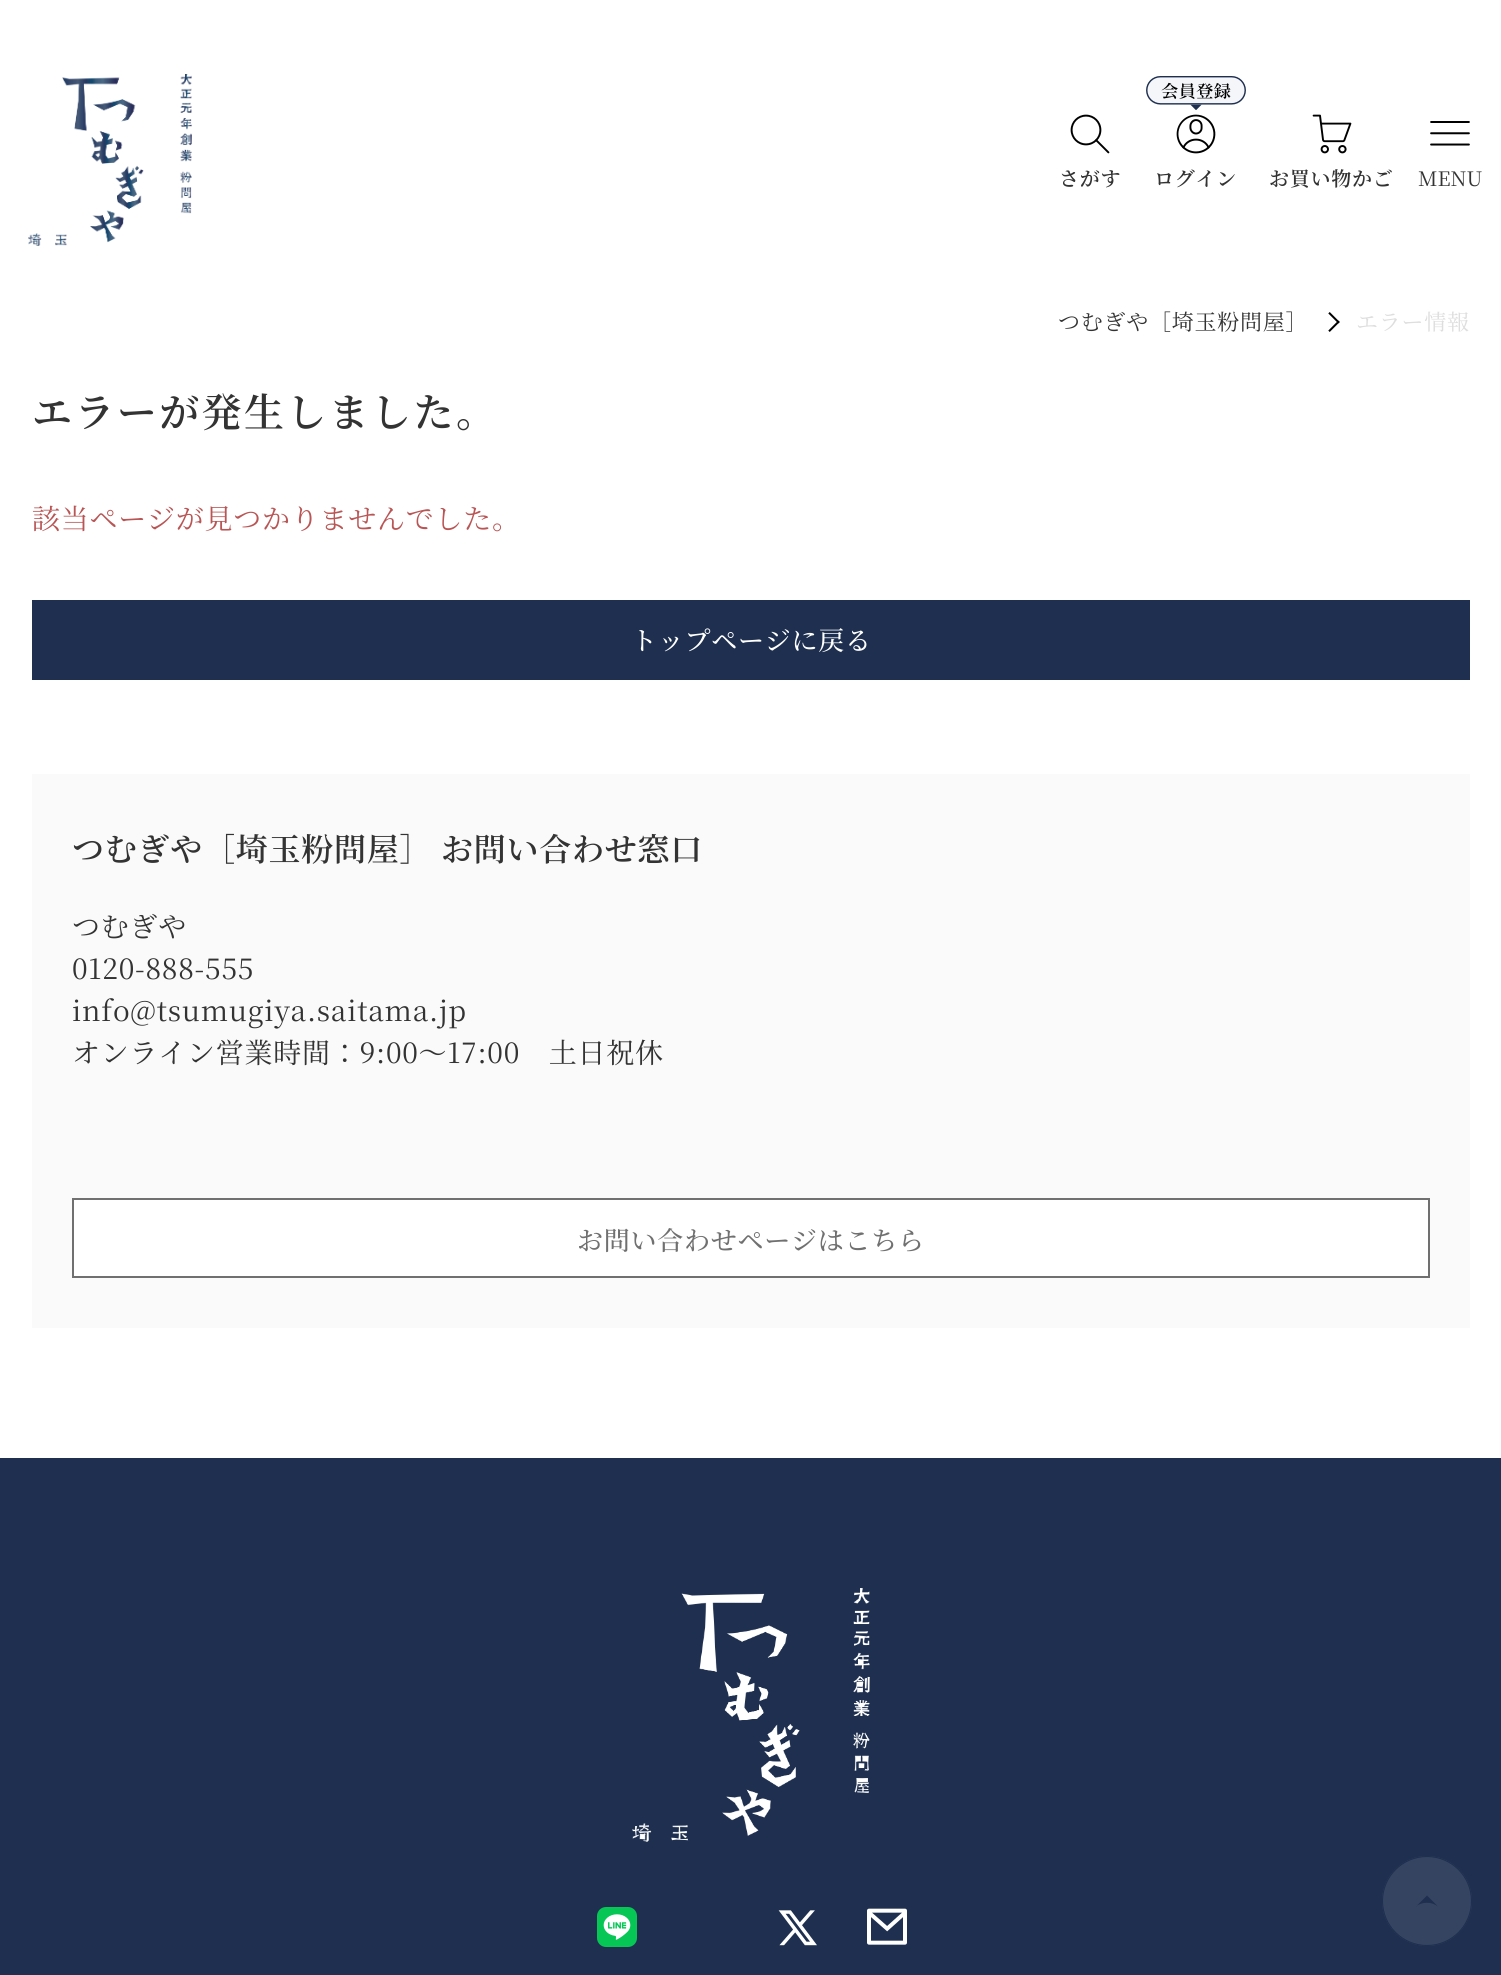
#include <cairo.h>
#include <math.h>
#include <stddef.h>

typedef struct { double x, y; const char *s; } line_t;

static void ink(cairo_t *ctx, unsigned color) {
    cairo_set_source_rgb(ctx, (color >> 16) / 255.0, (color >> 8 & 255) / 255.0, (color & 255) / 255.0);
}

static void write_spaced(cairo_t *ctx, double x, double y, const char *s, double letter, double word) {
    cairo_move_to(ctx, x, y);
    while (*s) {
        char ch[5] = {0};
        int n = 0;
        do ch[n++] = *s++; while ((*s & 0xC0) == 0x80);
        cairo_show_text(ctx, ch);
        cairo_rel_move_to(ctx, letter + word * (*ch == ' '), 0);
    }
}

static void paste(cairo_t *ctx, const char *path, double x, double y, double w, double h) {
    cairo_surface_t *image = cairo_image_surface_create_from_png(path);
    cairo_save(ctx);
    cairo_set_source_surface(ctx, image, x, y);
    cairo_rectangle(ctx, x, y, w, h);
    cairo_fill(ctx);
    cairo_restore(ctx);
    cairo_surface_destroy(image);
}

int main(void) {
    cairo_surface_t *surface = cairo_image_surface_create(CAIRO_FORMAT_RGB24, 1501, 1975);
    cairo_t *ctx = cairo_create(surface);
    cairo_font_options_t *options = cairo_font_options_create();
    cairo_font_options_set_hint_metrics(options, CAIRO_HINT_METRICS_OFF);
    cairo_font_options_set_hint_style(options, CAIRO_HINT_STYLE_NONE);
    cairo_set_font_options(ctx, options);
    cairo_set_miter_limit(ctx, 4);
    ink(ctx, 0xFFFFFF);
    cairo_paint(ctx);
    paste(ctx, "media/1.png", 28, 74, 164, 172);
    paste(ctx, "media/2.png", 1070, 114, 40, 40);
    cairo_select_font_face(ctx, "Noto Serif JP SemiBold", CAIRO_FONT_SLANT_NORMAL, CAIRO_FONT_WEIGHT_NORMAL);
    cairo_set_font_size(ctx, 20);
    ink(ctx, 0x333333);
    write_spaced(ctx, 1059, 186, "さがす", 0.75, 0);
    paste(ctx, "media/3.png", 1146, 76, 100, 34);
    paste(ctx, "media/4.png", 1176, 114, 40, 40);
    write_spaced(ctx, 1154, 186, "ログイン", 0.75, 0);
    paste(ctx, "media/5.png", 1312, 114, 40, 40);
    write_spaced(ctx, 1269, 186, "お買い物かご", 0.75, 0);
    paste(ctx, "media/6.png", 1430, 121, 40, 25);
    cairo_select_font_face(ctx, "Noto Serif JP", CAIRO_FONT_SLANT_NORMAL, CAIRO_FONT_WEIGHT_NORMAL);
    cairo_move_to(ctx, 1418, 186);
    cairo_show_text(ctx, "MENU");
    cairo_set_font_size(ctx, 22);
    write_spaced(ctx, 1058, 330, "つむぎや［埼玉粉問屋］", 0.75, 0);
    paste(ctx, "media/7.png", 1328, 312, 12, 20);
    ink(ctx, 0xDEDEDE);
    write_spaced(ctx, 1356, 330, "エラー情報", 0.75, 0);
    cairo_select_font_face(ctx, "Noto Serif JP SemiBold", CAIRO_FONT_SLANT_NORMAL, CAIRO_FONT_WEIGHT_NORMAL);
    cairo_set_font_size(ctx, 40);
    ink(ctx, 0x333333);
    write_spaced(ctx, 32, 427, "エラーが発生しました。", 2.4, 0);
    cairo_select_font_face(ctx, "Noto Serif JP", CAIRO_FONT_SLANT_NORMAL, CAIRO_FONT_WEIGHT_NORMAL);
    cairo_set_font_size(ctx, 28);
    ink(ctx, 0xB95555);
    write_spaced(ctx, 32, 529, "該当ページが見つかりませんでした。", 0.75, 0);
    ink(ctx, 0x1E2F4F);
    cairo_rectangle(ctx, 32, 600, 1438, 80);
    cairo_fill(ctx);
    cairo_select_font_face(ctx, "Noto Serif JP Medium", CAIRO_FONT_SLANT_NORMAL, CAIRO_FONT_WEIGHT_NORMAL);
    cairo_set_font_size(ctx, 26);
    ink(ctx, 0xFFFFFF);
    write_spaced(ctx, 631, 650, "トップページに戻る", 0.75, 0);
    ink(ctx, 0xFAFAFA);
    cairo_rectangle(ctx, 32, 774, 1438, 554);
    cairo_fill(ctx);
    cairo_select_font_face(ctx, "Noto Serif JP SemiBold", CAIRO_FONT_SLANT_NORMAL, CAIRO_FONT_WEIGHT_NORMAL);
    cairo_set_font_size(ctx, 32);
    ink(ctx, 0x333333);
    write_spaced(ctx, 72, 861, "つむぎや［埼玉粉問屋］ お問い合わせ窓口", 0.75, 0);
    cairo_select_font_face(ctx, "Noto Serif JP", CAIRO_FONT_SLANT_NORMAL, CAIRO_FONT_WEIGHT_NORMAL);
    cairo_set_font_size(ctx, 28);
    {
        static const line_t items[] = {
            {72, 937, "つむぎや"},
            {72, 979, "0120-888-555"},
            {72, 1021, "info@tsumugiya.saitama.jp"},
            {72, 1063, "オンライン営業時間：9:00～17:00　土日祝休"},
        };
        for (size_t i = 0; i < sizeof items / sizeof *items; i++) {
            write_spaced(ctx, items[i].x, items[i].y, items[i].s, 0.75, 0);
        }
    }
    ink(ctx, 0xFFFFFF);
    cairo_rectangle(ctx, 73, 1199, 1356, 78);
    cairo_fill_preserve(ctx);
    ink(ctx, 0x707070);
    cairo_stroke(ctx);
    cairo_select_font_face(ctx, "Noto Serif JP Medium", CAIRO_FONT_SLANT_NORMAL, CAIRO_FONT_WEIGHT_NORMAL);
    cairo_set_font_size(ctx, 26);
    write_spaced(ctx, 577, 1250, "お問い合わせページはこちら", 0.75, 0);
    ink(ctx, 0x1E2F4F);
    cairo_rectangle(ctx, 0, 1458, 1501, 517);
    cairo_fill(ctx);
    paste(ctx, "media/8.png", 632, 1588, 238, 254);
    paste(ctx, "media/9.png", 597, 1907, 40, 40);
    paste(ctx, "media/10.png", 778, 1910, 39, 36);
    paste(ctx, "media/11.png", 867, 1908, 40, 37);
    ink(ctx, 0x354461);
    cairo_arc(ctx, 1427, 1901, 45, 0, 2 * M_PI);
    cairo_fill(ctx);
    cairo_arc(ctx, 1427, 1901, 44.5, 0, 2 * M_PI);
    ink(ctx, 0x1E2F4F);
    cairo_set_line_width(ctx, 1.1);
    cairo_stroke(ctx);
    cairo_new_path(ctx);
    cairo_move_to(ctx, 1416, 1906.5);
    cairo_line_to(ctx, 1427, 1895.5);
    cairo_line_to(ctx, 1438, 1906.5);
    cairo_curve_to(ctx, 1431.5, 1901.5, 1422.5, 1901.5, 1415.5, 1906.5);
    cairo_close_path(ctx);
    cairo_fill(ctx);
    cairo_surface_write_to_png(surface, "image.png");
    cairo_font_options_destroy(options);
    cairo_destroy(ctx);
    cairo_surface_destroy(surface);
    return 0;
}
